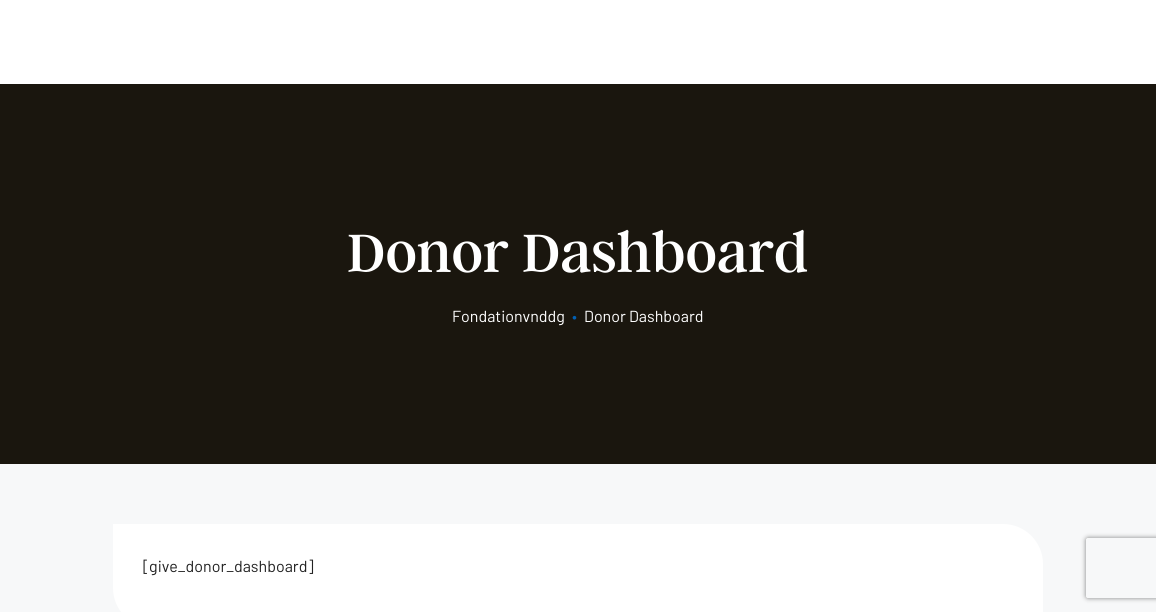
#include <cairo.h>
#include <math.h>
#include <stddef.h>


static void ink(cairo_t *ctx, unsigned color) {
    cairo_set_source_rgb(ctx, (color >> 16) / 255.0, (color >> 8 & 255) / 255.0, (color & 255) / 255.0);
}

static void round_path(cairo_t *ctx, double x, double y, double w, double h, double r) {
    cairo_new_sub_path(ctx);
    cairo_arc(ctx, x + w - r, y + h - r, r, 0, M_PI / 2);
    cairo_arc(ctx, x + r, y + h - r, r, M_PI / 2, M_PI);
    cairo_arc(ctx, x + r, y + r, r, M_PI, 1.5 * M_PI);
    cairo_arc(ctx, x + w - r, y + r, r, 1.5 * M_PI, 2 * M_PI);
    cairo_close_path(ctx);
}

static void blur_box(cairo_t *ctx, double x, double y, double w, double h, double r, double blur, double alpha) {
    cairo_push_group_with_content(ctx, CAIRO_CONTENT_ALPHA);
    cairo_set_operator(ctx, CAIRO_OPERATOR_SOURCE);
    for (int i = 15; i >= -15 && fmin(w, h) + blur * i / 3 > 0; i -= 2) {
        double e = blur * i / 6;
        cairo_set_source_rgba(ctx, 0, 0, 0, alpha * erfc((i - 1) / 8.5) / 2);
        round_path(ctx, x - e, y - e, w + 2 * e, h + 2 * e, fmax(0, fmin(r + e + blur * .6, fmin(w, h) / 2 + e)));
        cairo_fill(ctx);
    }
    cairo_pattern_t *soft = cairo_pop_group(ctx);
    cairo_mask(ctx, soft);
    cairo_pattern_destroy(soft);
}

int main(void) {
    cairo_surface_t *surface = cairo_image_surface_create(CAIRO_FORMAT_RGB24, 1156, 612);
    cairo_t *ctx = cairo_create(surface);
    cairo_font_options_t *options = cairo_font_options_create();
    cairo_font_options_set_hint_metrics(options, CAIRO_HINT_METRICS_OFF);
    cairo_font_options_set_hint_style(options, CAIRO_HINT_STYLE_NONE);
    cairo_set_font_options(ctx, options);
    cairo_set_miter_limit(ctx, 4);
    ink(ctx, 0xF7F8F9);
    cairo_paint(ctx);
    ink(ctx, 0xFFFFFF);
    cairo_rectangle(ctx, 0, 0, 1156, 84);
    cairo_fill(ctx);
    ink(ctx, 0x1A160E);
    cairo_rectangle(ctx, 0, 84, 1156, 380);
    cairo_fill(ctx);
    cairo_select_font_face(ctx, "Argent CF", CAIRO_FONT_SLANT_NORMAL, CAIRO_FONT_WEIGHT_NORMAL);
    cairo_set_font_size(ctx, 60);
    ink(ctx, 0xFFFFFF);
    cairo_move_to(ctx, 347, 272);
    cairo_show_text(ctx, "Donor Dashboard");
    cairo_select_font_face(ctx, "Barlow", CAIRO_FONT_SLANT_NORMAL, CAIRO_FONT_WEIGHT_NORMAL);
    cairo_set_font_size(ctx, 16);
    cairo_move_to(ctx, 452, 322);
    cairo_show_text(ctx, "Fondationvnddg");
    ink(ctx, 0x0160B4);
    cairo_move_to(ctx, 572, 322);
    cairo_show_text(ctx, "•");
    ink(ctx, 0xFFFFFF);
    cairo_move_to(ctx, 584, 322);
    cairo_show_text(ctx, "Donor Dashboard");
    cairo_new_path(ctx);
    cairo_move_to(ctx, 113, 524);
    cairo_line_to(ctx, 1003, 524);
    cairo_curve_to(ctx, 1025, 524, 1043, 542, 1043, 564);
    cairo_line_to(ctx, 1043, 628);
    cairo_line_to(ctx, 153, 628);
    cairo_curve_to(ctx, 131, 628, 113, 610, 113, 588);
    cairo_close_path(ctx);
    cairo_fill(ctx);
    ink(ctx, 0x222222);
    cairo_move_to(ctx, 143, 572);
    cairo_show_text(ctx, "[give_donor_dashboard]");
    cairo_save(ctx);
    cairo_set_fill_rule(ctx, CAIRO_FILL_RULE_EVEN_ODD);
    cairo_new_path(ctx);
    cairo_move_to(ctx, 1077, 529);
    cairo_line_to(ctx, 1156, 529);
    cairo_line_to(ctx, 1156, 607);
    cairo_line_to(ctx, 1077, 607);
    cairo_close_path(ctx);
    cairo_move_to(ctx, 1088, 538);
    cairo_line_to(ctx, 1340, 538);
    cairo_curve_to(ctx, 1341, 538, 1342, 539, 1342, 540);
    cairo_line_to(ctx, 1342, 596);
    cairo_curve_to(ctx, 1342, 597, 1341, 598, 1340, 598);
    cairo_line_to(ctx, 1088, 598);
    cairo_curve_to(ctx, 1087, 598, 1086, 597, 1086, 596);
    cairo_line_to(ctx, 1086, 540);
    cairo_curve_to(ctx, 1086, 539, 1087, 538, 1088, 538);
    cairo_close_path(ctx);
    cairo_clip(ctx);
    ink(ctx, 0x808080);
    blur_box(ctx, 1086, 538, 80, 60, 2, 2.5, 1);
    cairo_restore(ctx);
    cairo_surface_write_to_png(surface, "image.png");
    cairo_font_options_destroy(options);
    cairo_destroy(ctx);
    cairo_surface_destroy(surface);
    return 0;
}
